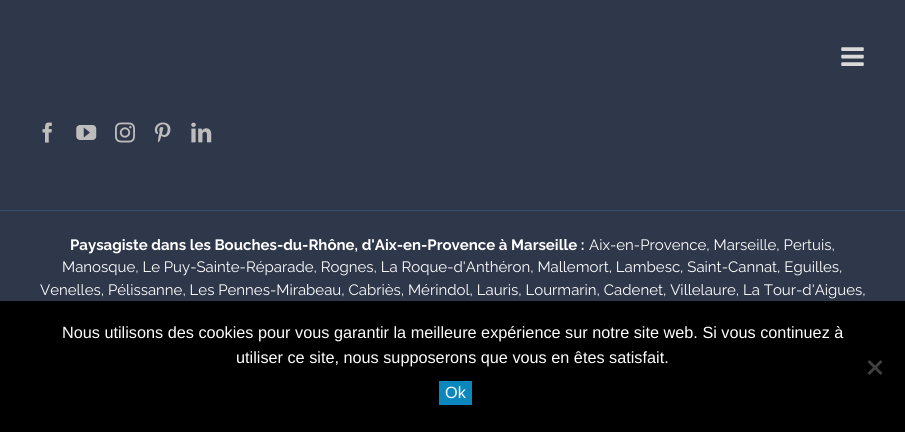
#include <cairo.h>
#include <math.h>
#include <stddef.h>

typedef struct { double x, y; const char *s; } line_t;

static void ink(cairo_t *ctx, unsigned color) {
    cairo_set_source_rgb(ctx, (color >> 16) / 255.0, (color >> 8 & 255) / 255.0, (color & 255) / 255.0);
}

static void paste(cairo_t *ctx, const char *path, double x, double y, double w, double h) {
    cairo_surface_t *image = cairo_image_surface_create_from_png(path);
    cairo_save(ctx);
    cairo_set_source_surface(ctx, image, x, y);
    cairo_rectangle(ctx, x, y, w, h);
    cairo_fill(ctx);
    cairo_restore(ctx);
    cairo_surface_destroy(image);
}

int main(void) {
    cairo_surface_t *surface = cairo_image_surface_create(CAIRO_FORMAT_RGB24, 905, 432);
    cairo_t *ctx = cairo_create(surface);
    cairo_font_options_t *options = cairo_font_options_create();
    cairo_font_options_set_hint_metrics(options, CAIRO_HINT_METRICS_OFF);
    cairo_font_options_set_hint_style(options, CAIRO_HINT_STYLE_NONE);
    cairo_set_font_options(ctx, options);
    cairo_set_miter_limit(ctx, 4);
    ink(ctx, 0x2F374B);
    cairo_paint(ctx);
    paste(ctx, "media/1.png", 841, 47, 23, 19);
    paste(ctx, "media/2.png", 42, 122, 10, 21);
    paste(ctx, "media/3.png", 76, 125, 21, 15);
    paste(ctx, "media/4.png", 115, 122, 20, 21);
    paste(ctx, "media/5.png", 154, 122, 17, 21);
    paste(ctx, "media/6.png", 191, 122, 21, 21);
    ink(ctx, 0x3A4D69);
    cairo_rectangle(ctx, 0, 210, 905, 1);
    cairo_fill(ctx);
    cairo_select_font_face(ctx, "Raleway", CAIRO_FONT_SLANT_NORMAL, CAIRO_FONT_WEIGHT_BOLD);
    cairo_set_font_size(ctx, 15);
    ink(ctx, 0xFFFFFF);
    cairo_move_to(ctx, 70, 250);
    cairo_show_text(ctx, "Paysagiste dans les Bouches-du-Rhône, d'Aix-en-Provence à Marseille :");
    cairo_select_font_face(ctx, "Raleway", CAIRO_FONT_SLANT_NORMAL, CAIRO_FONT_WEIGHT_NORMAL);
    {
        static const line_t items[] = {
            {589, 250, "Aix-en-Provence, Marseille, Pertuis,"},
            {62, 272, "Manosque, Le Puy-Sainte-Réparade, Rognes, La Roque-d'Anthéron, Mallemort, Lambesc, Saint-Cannat, Eguilles,"},
            {40, 295, "Venelles, Pélissanne, Les Pennes-Mirabeau, Cabriès, Mérindol, Lauris, Lourmarin, Cadenet, Villelaure, La Tour-d'Aigues,"},
        };
        for (size_t i = 0; i < sizeof items / sizeof *items; i++) {
            cairo_move_to(ctx, items[i].x, items[i].y);
            cairo_show_text(ctx, items[i].s);
        }
    }
    ink(ctx, 0x000000);
    cairo_rectangle(ctx, 0, 301, 905, 131);
    cairo_fill(ctx);
    cairo_select_font_face(ctx, "Liberation Sans", CAIRO_FONT_SLANT_NORMAL, CAIRO_FONT_WEIGHT_NORMAL);
    cairo_set_font_size(ctx, 16.25);
    ink(ctx, 0xFFFFFF);
    cairo_move_to(ctx, 62, 338);
    cairo_show_text(ctx, "Nous utilisons des cookies pour vous garantir la meilleure expérience sur notre site web. Si vous continuez à");
    cairo_move_to(ctx, 236, 363);
    cairo_show_text(ctx, "utiliser ce site, nous supposerons que vous en êtes satisfait.");
    ink(ctx, 0x404040);
    cairo_new_path(ctx);
    cairo_move_to(ctx, 880.5, 360);
    cairo_line_to(ctx, 882.5, 362);
    cairo_line_to(ctx, 869.5, 375);
    cairo_line_to(ctx, 867.5, 373);
    cairo_close_path(ctx);
    cairo_fill(ctx);
    cairo_new_path(ctx);
    cairo_move_to(ctx, 867.5, 362);
    cairo_line_to(ctx, 869.5, 360);
    cairo_line_to(ctx, 882.5, 373);
    cairo_line_to(ctx, 880.5, 375);
    cairo_close_path(ctx);
    cairo_fill(ctx);
    ink(ctx, 0x0B87BD);
    cairo_rectangle(ctx, 439, 381, 33, 24);
    cairo_fill(ctx);
    ink(ctx, 0xFFFFFF);
    cairo_move_to(ctx, 445, 398);
    cairo_show_text(ctx, "Ok");
    cairo_surface_write_to_png(surface, "image.png");
    cairo_font_options_destroy(options);
    cairo_destroy(ctx);
    cairo_surface_destroy(surface);
    return 0;
}
